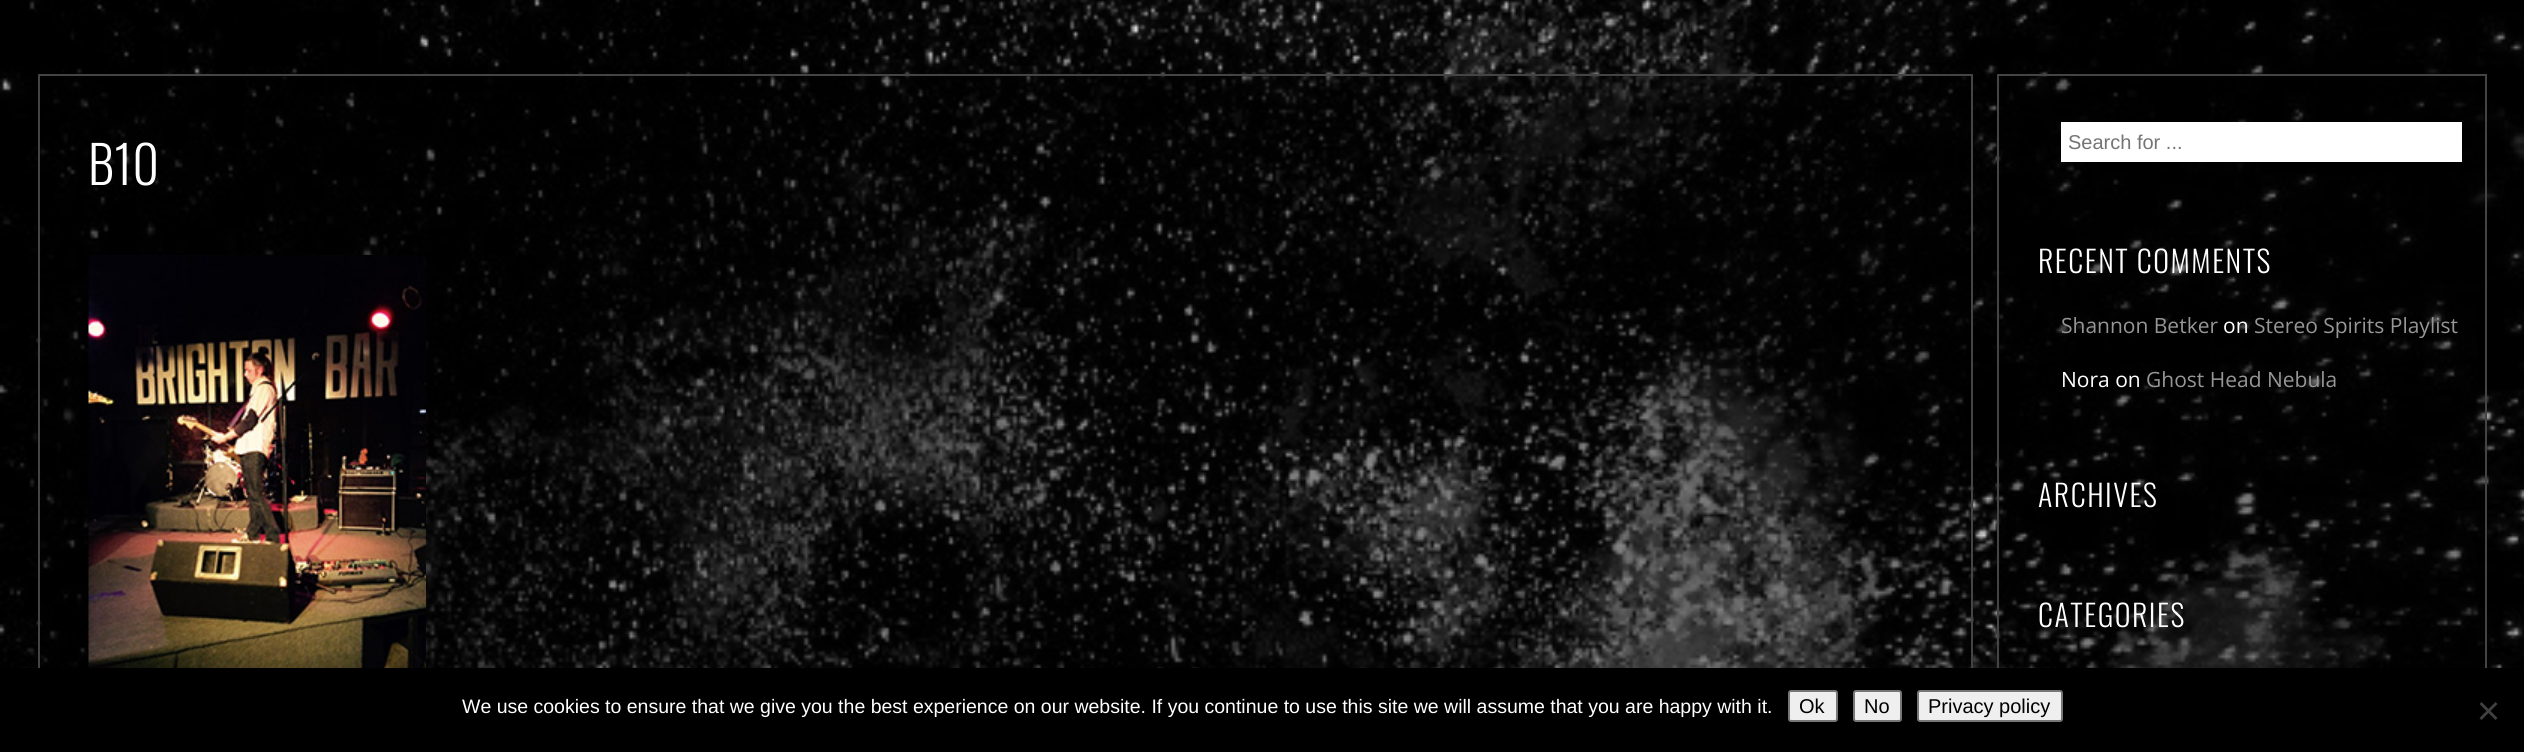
#include <cairo.h>
#include <math.h>
#include <stddef.h>


static void ink(cairo_t *ctx, unsigned color) {
    cairo_set_source_rgb(ctx, (color >> 16) / 255.0, (color >> 8 & 255) / 255.0, (color & 255) / 255.0);
}

static void write_spaced(cairo_t *ctx, double x, double y, const char *s, double letter, double word) {
    cairo_move_to(ctx, x, y);
    while (*s) {
        char ch[5] = {0};
        int n = 0;
        do ch[n++] = *s++; while ((*s & 0xC0) == 0x80);
        cairo_show_text(ctx, ch);
        cairo_rel_move_to(ctx, letter + word * (*ch == ' '), 0);
    }
}

static void round_path(cairo_t *ctx, double x, double y, double w, double h, double r) {
    cairo_new_sub_path(ctx);
    cairo_arc(ctx, x + w - r, y + h - r, r, 0, M_PI / 2);
    cairo_arc(ctx, x + r, y + h - r, r, M_PI / 2, M_PI);
    cairo_arc(ctx, x + r, y + r, r, M_PI, 1.5 * M_PI);
    cairo_arc(ctx, x + w - r, y + r, r, 1.5 * M_PI, 2 * M_PI);
    cairo_close_path(ctx);
}

static void paste(cairo_t *ctx, const char *path, double x, double y, double w, double h) {
    cairo_surface_t *image = cairo_image_surface_create_from_png(path);
    cairo_save(ctx);
    cairo_set_source_surface(ctx, image, x, y);
    cairo_rectangle(ctx, x, y, w, h);
    cairo_fill(ctx);
    cairo_restore(ctx);
    cairo_surface_destroy(image);
}

int main(void) {
    cairo_surface_t *surface = cairo_image_surface_create(CAIRO_FORMAT_RGB24, 2524, 752);
    cairo_t *ctx = cairo_create(surface);
    cairo_font_options_t *options = cairo_font_options_create();
    cairo_font_options_set_hint_metrics(options, CAIRO_HINT_METRICS_OFF);
    cairo_font_options_set_hint_style(options, CAIRO_HINT_STYLE_NONE);
    cairo_set_font_options(ctx, options);
    cairo_set_miter_limit(ctx, 4);
    ink(ctx, 0xFFFFFF);
    cairo_paint(ctx);
    paste(ctx, "media/1.png", 0, 0, 2524, 668);
    cairo_set_source_rgba(ctx, 0.004, 0.004, 0.004, 0.4);
    cairo_rectangle(ctx, 40, 76, 1931, 592);
    cairo_fill(ctx);
    cairo_rectangle(ctx, 39, 75, 1933, 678);
    ink(ctx, 0x434543);
    cairo_stroke(ctx);
    cairo_select_font_face(ctx, "Oswald Light", CAIRO_FONT_SLANT_NORMAL, CAIRO_FONT_WEIGHT_NORMAL);
    cairo_set_font_size(ctx, 52);
    ink(ctx, 0xFFFFFF);
    cairo_move_to(ctx, 88, 185);
    cairo_show_text(ctx, "B10");
    paste(ctx, "media/2.png", 88, 255, 338, 413);
    cairo_set_source_rgba(ctx, 0.004, 0.004, 0.004, 0.4);
    cairo_rectangle(ctx, 1999, 76, 486, 592);
    cairo_fill(ctx);
    cairo_rectangle(ctx, 1998, 75, 488, 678);
    ink(ctx, 0x434543);
    cairo_stroke(ctx);
    ink(ctx, 0xFFFFFF);
    cairo_rectangle(ctx, 2061, 122, 401, 40);
    cairo_fill(ctx);
    cairo_select_font_face(ctx, "Liberation Sans", CAIRO_FONT_SLANT_NORMAL, CAIRO_FONT_WEIGHT_NORMAL);
    cairo_set_font_size(ctx, 20);
    ink(ctx, 0x757575);
    cairo_move_to(ctx, 2068, 149);
    cairo_show_text(ctx, "Search for ...");
    cairo_select_font_face(ctx, "Oswald Light", CAIRO_FONT_SLANT_NORMAL, CAIRO_FONT_WEIGHT_NORMAL);
    cairo_set_font_size(ctx, 30);
    ink(ctx, 0xFFFFFF);
    write_spaced(ctx, 2038, 273, "RECENT COMMENTS", 1.5, 0);
    cairo_select_font_face(ctx, "Open Sans", CAIRO_FONT_SLANT_NORMAL, CAIRO_FONT_WEIGHT_NORMAL);
    cairo_set_font_size(ctx, 21);
    ink(ctx, 0x969696);
    cairo_move_to(ctx, 2061, 333);
    cairo_show_text(ctx, "Shannon Betker");
    ink(ctx, 0xFFFFFF);
    cairo_move_to(ctx, 2223, 333);
    cairo_show_text(ctx, "on");
    ink(ctx, 0x969696);
    cairo_move_to(ctx, 2254, 333);
    cairo_show_text(ctx, "Stereo Spirits Playlist");
    ink(ctx, 0xFFFFFF);
    cairo_move_to(ctx, 2061, 387);
    cairo_show_text(ctx, "Nora on");
    ink(ctx, 0x969696);
    cairo_move_to(ctx, 2146, 387);
    cairo_show_text(ctx, "Ghost Head Nebula");
    cairo_select_font_face(ctx, "Oswald Light", CAIRO_FONT_SLANT_NORMAL, CAIRO_FONT_WEIGHT_NORMAL);
    cairo_set_font_size(ctx, 30);
    ink(ctx, 0xFFFFFF);
    write_spaced(ctx, 2038, 507, "ARCHIVES", 1.5, 0);
    write_spaced(ctx, 2038, 627, "CATEGORIES", 1.5, 0);
    ink(ctx, 0x000000);
    cairo_rectangle(ctx, 0, 668, 2524, 84);
    cairo_fill(ctx);
    cairo_select_font_face(ctx, "Liberation Sans", CAIRO_FONT_SLANT_NORMAL, CAIRO_FONT_WEIGHT_NORMAL);
    cairo_set_font_size(ctx, 19.5);
    ink(ctx, 0xFFFFFF);
    cairo_move_to(ctx, 462, 713);
    cairo_show_text(ctx, "We use cookies to ensure that we give you the best experience on our website. If you continue to use this site we will assume that you are happy with it.");
    ink(ctx, 0xEFEFEF);
    round_path(ctx, 1789, 691, 48, 30, 2);
    cairo_fill_preserve(ctx);
    ink(ctx, 0x767676);
    cairo_stroke(ctx);
    cairo_set_font_size(ctx, 20);
    ink(ctx, 0x000000);
    cairo_move_to(ctx, 1799, 713);
    cairo_show_text(ctx, "Ok");
    ink(ctx, 0xEFEFEF);
    round_path(ctx, 1854, 691, 47, 30, 2);
    cairo_fill_preserve(ctx);
    ink(ctx, 0x767676);
    cairo_stroke(ctx);
    ink(ctx, 0x000000);
    cairo_move_to(ctx, 1864, 713);
    cairo_show_text(ctx, "No");
    ink(ctx, 0xEFEFEF);
    round_path(ctx, 1918, 691, 144, 30, 2);
    cairo_fill_preserve(ctx);
    ink(ctx, 0x767676);
    cairo_stroke(ctx);
    ink(ctx, 0x000000);
    cairo_move_to(ctx, 1928, 713);
    cairo_show_text(ctx, "Privacy policy");
    ink(ctx, 0x404040);
    cairo_new_path(ctx);
    cairo_move_to(ctx, 2495.5, 702);
    cairo_line_to(ctx, 2497.5, 704);
    cairo_line_to(ctx, 2481.5, 720);
    cairo_line_to(ctx, 2479.5, 718);
    cairo_close_path(ctx);
    cairo_fill(ctx);
    cairo_new_path(ctx);
    cairo_move_to(ctx, 2479.5, 704);
    cairo_line_to(ctx, 2481.5, 702);
    cairo_line_to(ctx, 2497.5, 718);
    cairo_line_to(ctx, 2495.5, 720);
    cairo_close_path(ctx);
    cairo_fill(ctx);
    cairo_surface_write_to_png(surface, "image.png");
    cairo_font_options_destroy(options);
    cairo_destroy(ctx);
    cairo_surface_destroy(surface);
    return 0;
}
